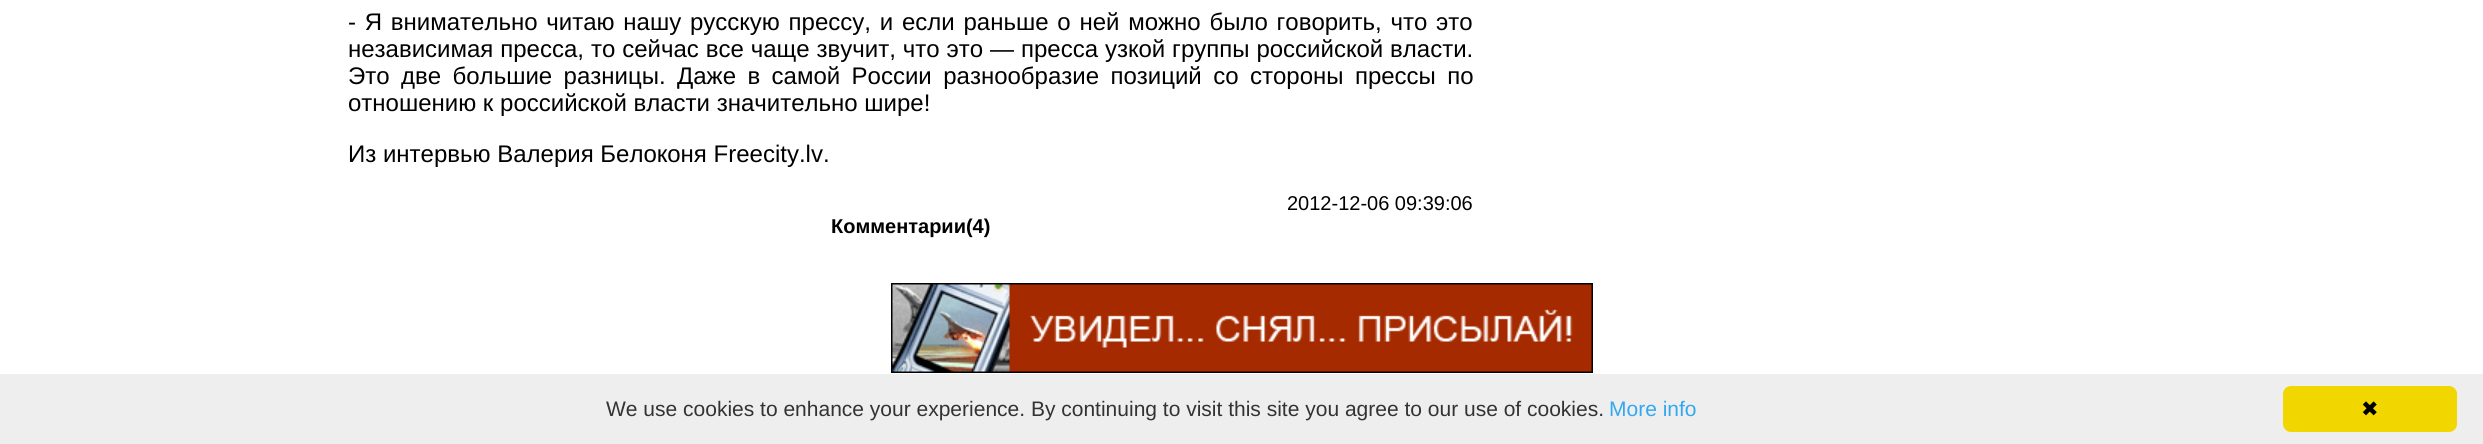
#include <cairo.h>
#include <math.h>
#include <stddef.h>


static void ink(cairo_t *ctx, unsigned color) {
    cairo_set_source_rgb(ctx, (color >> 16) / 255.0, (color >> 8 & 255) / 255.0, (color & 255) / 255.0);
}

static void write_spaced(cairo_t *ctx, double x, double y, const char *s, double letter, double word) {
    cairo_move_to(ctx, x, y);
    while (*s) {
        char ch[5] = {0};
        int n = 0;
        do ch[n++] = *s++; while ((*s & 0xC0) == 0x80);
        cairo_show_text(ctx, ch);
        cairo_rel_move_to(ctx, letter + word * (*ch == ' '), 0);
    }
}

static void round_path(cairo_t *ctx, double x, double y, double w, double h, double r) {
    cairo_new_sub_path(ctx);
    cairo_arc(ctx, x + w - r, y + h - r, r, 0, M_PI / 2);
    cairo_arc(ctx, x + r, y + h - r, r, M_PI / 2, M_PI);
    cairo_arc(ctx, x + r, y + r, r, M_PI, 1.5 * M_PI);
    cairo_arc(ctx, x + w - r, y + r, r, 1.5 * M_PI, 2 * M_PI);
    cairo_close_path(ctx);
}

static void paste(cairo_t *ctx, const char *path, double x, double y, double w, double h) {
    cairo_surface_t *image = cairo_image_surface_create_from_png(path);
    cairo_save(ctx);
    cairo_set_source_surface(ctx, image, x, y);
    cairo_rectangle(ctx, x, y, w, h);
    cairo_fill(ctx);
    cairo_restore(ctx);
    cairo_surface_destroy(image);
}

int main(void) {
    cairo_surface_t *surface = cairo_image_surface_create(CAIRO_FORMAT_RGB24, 2483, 444);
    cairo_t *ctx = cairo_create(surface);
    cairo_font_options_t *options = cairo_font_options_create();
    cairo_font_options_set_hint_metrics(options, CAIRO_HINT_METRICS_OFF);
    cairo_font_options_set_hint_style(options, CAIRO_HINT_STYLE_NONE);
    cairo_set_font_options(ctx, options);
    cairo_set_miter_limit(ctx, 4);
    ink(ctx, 0xFFFFFF);
    cairo_paint(ctx);
    cairo_select_font_face(ctx, "Liberation Sans", CAIRO_FONT_SLANT_NORMAL, CAIRO_FONT_WEIGHT_NORMAL);
    cairo_set_font_size(ctx, 24);
    ink(ctx, 0x000000);
    write_spaced(ctx, 348, 30, "- Я внимательно читаю нашу русскую прессу, и если раньше о ней можно было говорить, что это", 0, 2.1);
    write_spaced(ctx, 348, 57, "независимая пресса, то сейчас все чаще звучит, что это — пресса узкой группы российской власти.", 0, 0.25);
    write_spaced(ctx, 348, 84, "Это две большие разницы. Даже в самой России разнообразие позиций со стороны прессы по", 0, 4.75);
    cairo_move_to(ctx, 348, 111);
    cairo_show_text(ctx, "отношению к российской власти значительно шире!");
    cairo_move_to(ctx, 348, 162);
    cairo_show_text(ctx, "Из интервью Валерия Белоконя Freecity.lv.");
    cairo_set_font_size(ctx, 20);
    cairo_move_to(ctx, 1287, 210);
    cairo_show_text(ctx, "2012-12-06 09:39:06");
    cairo_select_font_face(ctx, "Liberation Sans", CAIRO_FONT_SLANT_NORMAL, CAIRO_FONT_WEIGHT_BOLD);
    cairo_move_to(ctx, 831, 233);
    cairo_show_text(ctx, "Комментарии(4)");
    paste(ctx, "media/1.png", 891, 283, 702, 90);
    ink(ctx, 0xEEEEEE);
    cairo_rectangle(ctx, 0, 374, 2483, 70);
    cairo_fill(ctx);
    cairo_select_font_face(ctx, "Liberation Sans", CAIRO_FONT_SLANT_NORMAL, CAIRO_FONT_WEIGHT_NORMAL);
    cairo_set_font_size(ctx, 21);
    ink(ctx, 0x333333);
    cairo_move_to(ctx, 606, 416);
    cairo_show_text(ctx, "We use cookies to enhance your experience. By continuing to visit this site you agree to our use of cookies.");
    ink(ctx, 0x31A8F0);
    cairo_move_to(ctx, 1609, 416);
    cairo_show_text(ctx, "More info");
    ink(ctx, 0xF1D600);
    round_path(ctx, 2283, 386, 174, 46, 8);
    cairo_fill(ctx);
    cairo_select_font_face(ctx, "DejaVu Sans", CAIRO_FONT_SLANT_NORMAL, CAIRO_FONT_WEIGHT_NORMAL);
    ink(ctx, 0x000000);
    cairo_move_to(ctx, 2361, 416);
    cairo_show_text(ctx, "✖");
    cairo_surface_write_to_png(surface, "image.png");
    cairo_font_options_destroy(options);
    cairo_destroy(ctx);
    cairo_surface_destroy(surface);
    return 0;
}
